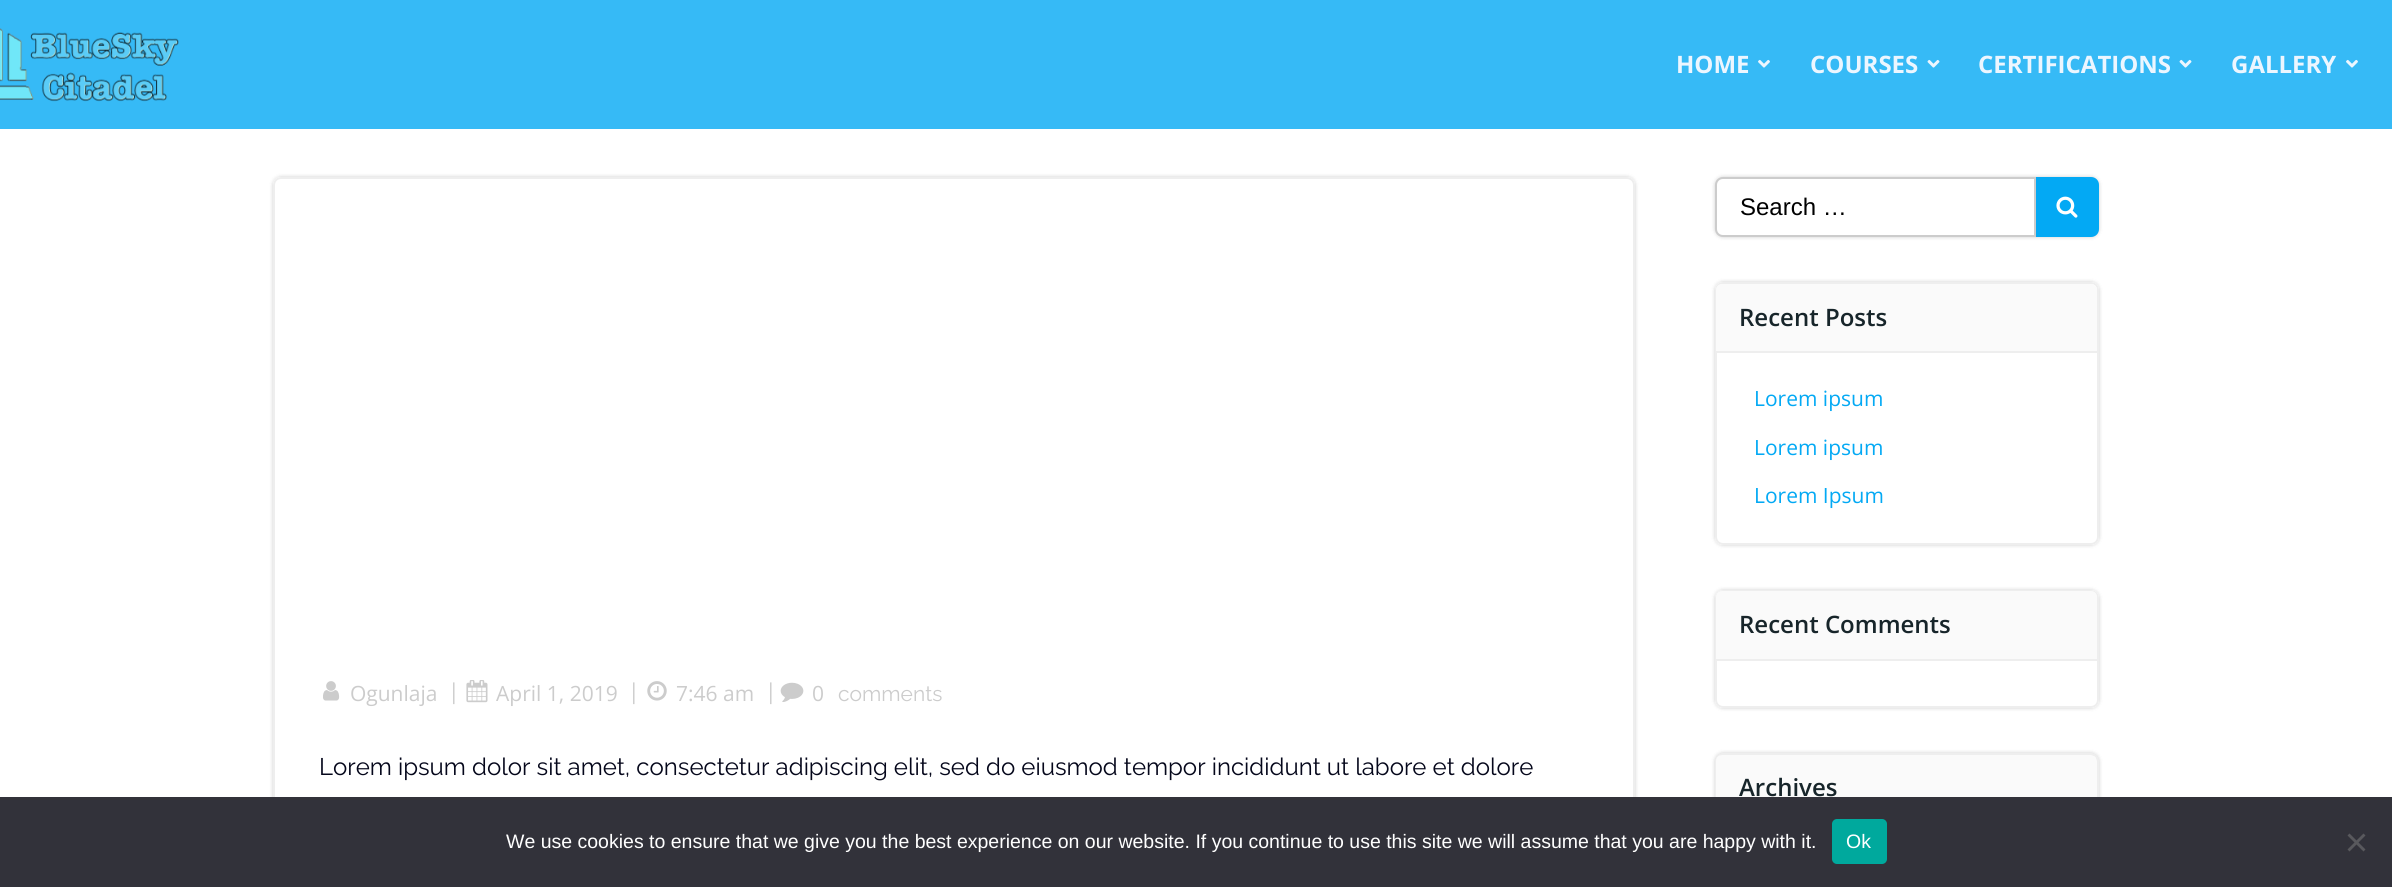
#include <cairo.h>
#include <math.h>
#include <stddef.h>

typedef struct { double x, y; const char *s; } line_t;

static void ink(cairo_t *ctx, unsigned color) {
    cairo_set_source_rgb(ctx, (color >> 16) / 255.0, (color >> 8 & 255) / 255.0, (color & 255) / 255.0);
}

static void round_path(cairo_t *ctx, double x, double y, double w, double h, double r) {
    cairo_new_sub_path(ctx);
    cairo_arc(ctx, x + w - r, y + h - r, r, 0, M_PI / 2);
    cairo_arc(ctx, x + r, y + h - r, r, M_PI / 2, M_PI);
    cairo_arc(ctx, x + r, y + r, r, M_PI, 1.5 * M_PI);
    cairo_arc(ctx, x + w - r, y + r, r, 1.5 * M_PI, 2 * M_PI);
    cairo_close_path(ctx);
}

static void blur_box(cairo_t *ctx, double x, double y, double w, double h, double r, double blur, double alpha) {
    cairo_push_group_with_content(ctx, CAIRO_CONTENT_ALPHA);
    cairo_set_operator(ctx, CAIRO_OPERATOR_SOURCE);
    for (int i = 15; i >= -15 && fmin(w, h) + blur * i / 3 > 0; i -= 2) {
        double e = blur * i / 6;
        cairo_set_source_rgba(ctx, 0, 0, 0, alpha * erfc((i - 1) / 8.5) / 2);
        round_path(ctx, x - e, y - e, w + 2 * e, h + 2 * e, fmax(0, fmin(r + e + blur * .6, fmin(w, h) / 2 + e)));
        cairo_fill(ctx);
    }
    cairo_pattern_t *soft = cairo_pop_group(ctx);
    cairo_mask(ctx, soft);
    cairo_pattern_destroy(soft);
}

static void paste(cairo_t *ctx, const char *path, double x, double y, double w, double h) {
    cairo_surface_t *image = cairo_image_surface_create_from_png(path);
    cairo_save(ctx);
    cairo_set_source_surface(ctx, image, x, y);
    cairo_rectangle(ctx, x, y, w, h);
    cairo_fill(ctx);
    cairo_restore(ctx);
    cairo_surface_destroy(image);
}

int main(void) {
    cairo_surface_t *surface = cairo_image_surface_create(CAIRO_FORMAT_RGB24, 2392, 887);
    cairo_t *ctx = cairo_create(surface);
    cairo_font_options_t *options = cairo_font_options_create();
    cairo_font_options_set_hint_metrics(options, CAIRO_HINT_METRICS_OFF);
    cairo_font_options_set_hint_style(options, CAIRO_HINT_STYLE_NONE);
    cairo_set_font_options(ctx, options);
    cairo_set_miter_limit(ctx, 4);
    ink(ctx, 0xFFFFFF);
    cairo_paint(ctx);
    ink(ctx, 0x36BAF6);
    cairo_rectangle(ctx, 0, 0, 2392, 129);
    cairo_fill(ctx);
    paste(ctx, "media/1.png", 0, 28, 179, 74);
    cairo_select_font_face(ctx, "Open Sans", CAIRO_FONT_SLANT_NORMAL, CAIRO_FONT_WEIGHT_BOLD);
    cairo_set_font_size(ctx, 24);
    ink(ctx, 0xECF6FF);
    cairo_move_to(ctx, 1676, 73);
    cairo_show_text(ctx, "HOME");
    paste(ctx, "media/2.png", 1758, 59, 12, 9);
    cairo_move_to(ctx, 1810, 73);
    cairo_show_text(ctx, "COURSES");
    paste(ctx, "media/3.png", 1927, 59, 13, 9);
    cairo_move_to(ctx, 1978, 73);
    cairo_show_text(ctx, "CERTIFICATIONS");
    paste(ctx, "media/3.png", 2179, 59, 13, 9);
    cairo_move_to(ctx, 2231, 73);
    cairo_show_text(ctx, "GALLERY");
    paste(ctx, "media/2.png", 2346, 59, 12, 9);
    cairo_save(ctx);
    cairo_set_fill_rule(ctx, CAIRO_FILL_RULE_EVEN_ODD);
    cairo_new_path(ctx);
    cairo_move_to(ctx, 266, 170);
    cairo_line_to(ctx, 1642, 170);
    cairo_line_to(ctx, 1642, 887);
    cairo_line_to(ctx, 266, 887);
    cairo_close_path(ctx);
    cairo_move_to(ctx, 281, 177);
    cairo_line_to(ctx, 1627, 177);
    cairo_curve_to(ctx, 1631.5, 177, 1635, 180.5, 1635, 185);
    cairo_line_to(ctx, 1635, 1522);
    cairo_curve_to(ctx, 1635, 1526.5, 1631.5, 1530, 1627, 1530);
    cairo_line_to(ctx, 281, 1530);
    cairo_curve_to(ctx, 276.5, 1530, 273, 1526.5, 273, 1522);
    cairo_line_to(ctx, 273, 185);
    cairo_curve_to(ctx, 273, 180.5, 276.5, 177, 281, 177);
    cairo_close_path(ctx);
    cairo_clip(ctx);
    ink(ctx, 0x000000);
    blur_box(ctx, 273, 177, 1362, 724, 8, 2, 0.2);
    cairo_restore(ctx);
    round_path(ctx, 274, 178, 1360, 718, 7);
    ink(ctx, 0xEEEEEE);
    cairo_stroke(ctx);
    paste(ctx, "media/4.png", 323, 681, 17, 20);
    cairo_select_font_face(ctx, "Open Sans", CAIRO_FONT_SLANT_NORMAL, CAIRO_FONT_WEIGHT_NORMAL);
    cairo_set_font_size(ctx, 21);
    ink(ctx, 0xCCCCCC);
    cairo_move_to(ctx, 350, 701);
    cairo_show_text(ctx, "Ogunlaja");
    cairo_select_font_face(ctx, "Raleway", CAIRO_FONT_SLANT_NORMAL, CAIRO_FONT_WEIGHT_NORMAL);
    cairo_set_font_size(ctx, 24);
    cairo_move_to(ctx, 451, 701);
    cairo_show_text(ctx, "|");
    paste(ctx, "media/5.png", 466, 680, 22, 23);
    cairo_select_font_face(ctx, "Open Sans", CAIRO_FONT_SLANT_NORMAL, CAIRO_FONT_WEIGHT_NORMAL);
    cairo_set_font_size(ctx, 21);
    cairo_move_to(ctx, 496, 701);
    cairo_show_text(ctx, "April 1, 2019");
    cairo_select_font_face(ctx, "Raleway", CAIRO_FONT_SLANT_NORMAL, CAIRO_FONT_WEIGHT_NORMAL);
    cairo_set_font_size(ctx, 24);
    cairo_move_to(ctx, 631, 701);
    cairo_show_text(ctx, "|");
    paste(ctx, "media/6.png", 647, 681, 20, 20);
    cairo_select_font_face(ctx, "Open Sans", CAIRO_FONT_SLANT_NORMAL, CAIRO_FONT_WEIGHT_NORMAL);
    cairo_set_font_size(ctx, 21);
    cairo_move_to(ctx, 676, 701);
    cairo_show_text(ctx, "7:46 am");
    cairo_select_font_face(ctx, "Raleway", CAIRO_FONT_SLANT_NORMAL, CAIRO_FONT_WEIGHT_NORMAL);
    cairo_set_font_size(ctx, 24);
    cairo_move_to(ctx, 768, 701);
    cairo_show_text(ctx, "|");
    paste(ctx, "media/7.png", 780, 682, 24, 20);
    cairo_select_font_face(ctx, "Open Sans", CAIRO_FONT_SLANT_NORMAL, CAIRO_FONT_WEIGHT_NORMAL);
    cairo_set_font_size(ctx, 21);
    cairo_move_to(ctx, 812, 701);
    cairo_show_text(ctx, "0");
    cairo_select_font_face(ctx, "Raleway", CAIRO_FONT_SLANT_NORMAL, CAIRO_FONT_WEIGHT_NORMAL);
    cairo_move_to(ctx, 838, 701);
    cairo_show_text(ctx, "comments");
    cairo_set_font_size(ctx, 24);
    ink(ctx, 0x05071B);
    cairo_move_to(ctx, 319, 775);
    cairo_show_text(ctx, "Lorem ipsum dolor sit amet, consectetur adipiscing elit, sed do eiusmod tempor incididunt ut labore et dolore");
    ink(ctx, 0x000000);
    blur_box(ctx, 1715, 177, 384, 60, 8, 2, 0.2);
    ink(ctx, 0xFFFFFF);
    cairo_new_path(ctx);
    cairo_move_to(ctx, 1723, 178);
    cairo_line_to(ctx, 2035, 178);
    cairo_line_to(ctx, 2035, 236);
    cairo_line_to(ctx, 1723, 236);
    cairo_curve_to(ctx, 1719, 236, 1716, 233, 1716, 229);
    cairo_line_to(ctx, 1716, 185);
    cairo_curve_to(ctx, 1716, 181, 1719, 178, 1723, 178);
    cairo_close_path(ctx);
    cairo_fill_preserve(ctx);
    ink(ctx, 0xCCCCCC);
    cairo_stroke(ctx);
    cairo_select_font_face(ctx, "Liberation Sans", CAIRO_FONT_SLANT_NORMAL, CAIRO_FONT_WEIGHT_NORMAL);
    ink(ctx, 0x000000);
    cairo_move_to(ctx, 1740, 215);
    cairo_show_text(ctx, "Search …");
    ink(ctx, 0x03A9F4);
    cairo_new_path(ctx);
    cairo_move_to(ctx, 2037, 178);
    cairo_line_to(ctx, 2091, 178);
    cairo_curve_to(ctx, 2095, 178, 2098, 181, 2098, 185);
    cairo_line_to(ctx, 2098, 229);
    cairo_curve_to(ctx, 2098, 233, 2095, 236, 2091, 236);
    cairo_line_to(ctx, 2037, 236);
    cairo_close_path(ctx);
    cairo_fill_preserve(ctx);
    cairo_stroke(ctx);
    paste(ctx, "media/8.png", 2056, 196, 22, 22);
    cairo_save(ctx);
    cairo_set_fill_rule(ctx, CAIRO_FILL_RULE_EVEN_ODD);
    cairo_new_path(ctx);
    cairo_move_to(ctx, 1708, 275);
    cairo_line_to(ctx, 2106, 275);
    cairo_line_to(ctx, 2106, 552);
    cairo_line_to(ctx, 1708, 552);
    cairo_close_path(ctx);
    cairo_move_to(ctx, 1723, 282);
    cairo_line_to(ctx, 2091, 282);
    cairo_curve_to(ctx, 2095.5, 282, 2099, 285.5, 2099, 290);
    cairo_line_to(ctx, 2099, 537);
    cairo_curve_to(ctx, 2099, 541.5, 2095.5, 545, 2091, 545);
    cairo_line_to(ctx, 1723, 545);
    cairo_curve_to(ctx, 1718.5, 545, 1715, 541.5, 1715, 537);
    cairo_line_to(ctx, 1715, 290);
    cairo_curve_to(ctx, 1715, 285.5, 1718.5, 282, 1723, 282);
    cairo_close_path(ctx);
    cairo_clip(ctx);
    ink(ctx, 0x000000);
    blur_box(ctx, 1715, 282, 384, 263, 8, 2, 0.2);
    cairo_restore(ctx);
    round_path(ctx, 1716, 283, 382, 261, 7);
    ink(ctx, 0xEEEEEE);
    cairo_stroke(ctx);
    ink(ctx, 0xFAFAFA);
    cairo_new_path(ctx);
    cairo_move_to(ctx, 1722, 284);
    cairo_line_to(ctx, 2091, 284);
    cairo_curve_to(ctx, 2094.5, 284, 2097, 286.5, 2097, 290);
    cairo_line_to(ctx, 2097, 351);
    cairo_line_to(ctx, 1716, 351);
    cairo_line_to(ctx, 1716, 290);
    cairo_curve_to(ctx, 1716, 286.5, 1718.5, 284, 1722, 284);
    cairo_close_path(ctx);
    cairo_fill(ctx);
    ink(ctx, 0xEEEEEE);
    cairo_rectangle(ctx, 1716, 351, 381, 2);
    cairo_fill(ctx);
    cairo_select_font_face(ctx, "Open Sans SemiBold", CAIRO_FONT_SLANT_NORMAL, CAIRO_FONT_WEIGHT_NORMAL);
    ink(ctx, 0x17252A);
    cairo_move_to(ctx, 1739, 326);
    cairo_show_text(ctx, "Recent Posts");
    cairo_select_font_face(ctx, "Open Sans", CAIRO_FONT_SLANT_NORMAL, CAIRO_FONT_WEIGHT_NORMAL);
    cairo_set_font_size(ctx, 21);
    ink(ctx, 0x03A9F4);
    {
        static const line_t items[] = {
            {1754, 406, "Lorem ipsum"},
            {1754, 455, "Lorem ipsum"},
            {1754, 503, "Lorem Ipsum"},
        };
        for (size_t i = 0; i < sizeof items / sizeof *items; i++) {
            cairo_move_to(ctx, items[i].x, items[i].y);
            cairo_show_text(ctx, items[i].s);
        }
    }
    cairo_save(ctx);
    cairo_set_fill_rule(ctx, CAIRO_FILL_RULE_EVEN_ODD);
    cairo_new_path(ctx);
    cairo_move_to(ctx, 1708, 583);
    cairo_line_to(ctx, 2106, 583);
    cairo_line_to(ctx, 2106, 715);
    cairo_line_to(ctx, 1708, 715);
    cairo_close_path(ctx);
    cairo_move_to(ctx, 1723, 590);
    cairo_line_to(ctx, 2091, 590);
    cairo_curve_to(ctx, 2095.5, 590, 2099, 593.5, 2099, 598);
    cairo_line_to(ctx, 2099, 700);
    cairo_curve_to(ctx, 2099, 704.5, 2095.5, 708, 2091, 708);
    cairo_line_to(ctx, 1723, 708);
    cairo_curve_to(ctx, 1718.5, 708, 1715, 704.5, 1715, 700);
    cairo_line_to(ctx, 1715, 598);
    cairo_curve_to(ctx, 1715, 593.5, 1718.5, 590, 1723, 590);
    cairo_close_path(ctx);
    cairo_clip(ctx);
    ink(ctx, 0x000000);
    blur_box(ctx, 1715, 590, 384, 118, 8, 2, 0.2);
    cairo_restore(ctx);
    round_path(ctx, 1716, 591, 382, 116, 7);
    ink(ctx, 0xEEEEEE);
    cairo_stroke(ctx);
    ink(ctx, 0xFAFAFA);
    cairo_new_path(ctx);
    cairo_move_to(ctx, 1722, 591);
    cairo_line_to(ctx, 2091, 591);
    cairo_curve_to(ctx, 2094.5, 591, 2097, 593.5, 2097, 597);
    cairo_line_to(ctx, 2097, 659);
    cairo_line_to(ctx, 1716, 659);
    cairo_line_to(ctx, 1716, 597);
    cairo_curve_to(ctx, 1716, 593.5, 1718.5, 591, 1722, 591);
    cairo_close_path(ctx);
    cairo_fill(ctx);
    ink(ctx, 0xEEEEEE);
    cairo_rectangle(ctx, 1716, 659, 381, 2);
    cairo_fill(ctx);
    cairo_select_font_face(ctx, "Open Sans SemiBold", CAIRO_FONT_SLANT_NORMAL, CAIRO_FONT_WEIGHT_NORMAL);
    cairo_set_font_size(ctx, 24);
    ink(ctx, 0x17252A);
    cairo_move_to(ctx, 1739, 633);
    cairo_show_text(ctx, "Recent Comments");
    ink(ctx, 0x000000);
    blur_box(ctx, 1715, 753, 384, 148, 8, 2, 0.2);
    round_path(ctx, 1716, 754, 382, 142, 7);
    ink(ctx, 0xEEEEEE);
    cairo_stroke(ctx);
    ink(ctx, 0xFAFAFA);
    cairo_new_path(ctx);
    cairo_move_to(ctx, 1722, 755);
    cairo_line_to(ctx, 2091, 755);
    cairo_curve_to(ctx, 2094.5, 755, 2097, 757.5, 2097, 761);
    cairo_line_to(ctx, 2097, 822);
    cairo_line_to(ctx, 1716, 822);
    cairo_line_to(ctx, 1716, 761);
    cairo_curve_to(ctx, 1716, 757.5, 1718.5, 755, 1722, 755);
    cairo_close_path(ctx);
    cairo_fill(ctx);
    ink(ctx, 0x17252A);
    cairo_move_to(ctx, 1739, 796);
    cairo_show_text(ctx, "Archives");
    ink(ctx, 0x32323A);
    cairo_rectangle(ctx, 0, 797, 2392, 90);
    cairo_fill(ctx);
    cairo_select_font_face(ctx, "Liberation Sans", CAIRO_FONT_SLANT_NORMAL, CAIRO_FONT_WEIGHT_NORMAL);
    cairo_set_font_size(ctx, 19.5);
    ink(ctx, 0xFFFFFF);
    cairo_move_to(ctx, 506, 848);
    cairo_show_text(ctx, "We use cookies to ensure that we give you the best experience on our website. If you continue to use this site we will assume that you are happy with it.");
    ink(ctx, 0x00A99D);
    round_path(ctx, 1832, 819, 55, 45, 5);
    cairo_fill(ctx);
    ink(ctx, 0xFFFFFF);
    cairo_move_to(ctx, 1846, 848);
    cairo_show_text(ctx, "Ok");
    ink(ctx, 0x59595D);
    cairo_new_path(ctx);
    cairo_move_to(ctx, 2363.5, 833.5);
    cairo_line_to(ctx, 2365.5, 835.5);
    cairo_line_to(ctx, 2349.5, 851.5);
    cairo_line_to(ctx, 2347.5, 849.5);
    cairo_close_path(ctx);
    cairo_fill(ctx);
    cairo_new_path(ctx);
    cairo_move_to(ctx, 2347.5, 835.5);
    cairo_line_to(ctx, 2349.5, 833.5);
    cairo_line_to(ctx, 2365.5, 849.5);
    cairo_line_to(ctx, 2363.5, 851.5);
    cairo_close_path(ctx);
    cairo_fill(ctx);
    cairo_surface_write_to_png(surface, "image.png");
    cairo_font_options_destroy(options);
    cairo_destroy(ctx);
    cairo_surface_destroy(surface);
    return 0;
}
